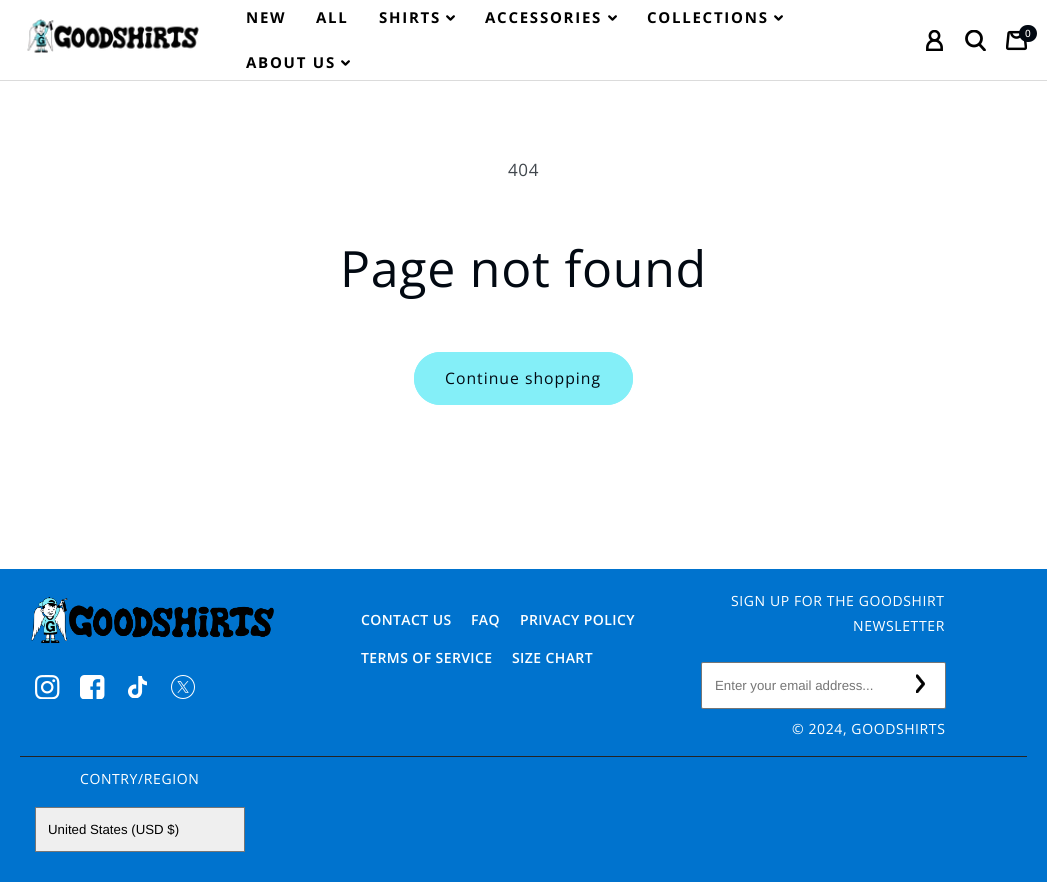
#include <cairo.h>
#include <math.h>
#include <stddef.h>

typedef struct { double x, y; const char *s; } line_t;

static void ink(cairo_t *ctx, unsigned color) {
    cairo_set_source_rgb(ctx, (color >> 16) / 255.0, (color >> 8 & 255) / 255.0, (color & 255) / 255.0);
}

static void write_spaced(cairo_t *ctx, double x, double y, const char *s, double letter, double word) {
    cairo_move_to(ctx, x, y);
    while (*s) {
        char ch[5] = {0};
        int n = 0;
        do ch[n++] = *s++; while ((*s & 0xC0) == 0x80);
        cairo_show_text(ctx, ch);
        cairo_rel_move_to(ctx, letter + word * (*ch == ' '), 0);
    }
}

static void round_path(cairo_t *ctx, double x, double y, double w, double h, double r) {
    cairo_new_sub_path(ctx);
    cairo_arc(ctx, x + w - r, y + h - r, r, 0, M_PI / 2);
    cairo_arc(ctx, x + r, y + h - r, r, M_PI / 2, M_PI);
    cairo_arc(ctx, x + r, y + r, r, M_PI, 1.5 * M_PI);
    cairo_arc(ctx, x + w - r, y + r, r, 1.5 * M_PI, 2 * M_PI);
    cairo_close_path(ctx);
}

static void paste(cairo_t *ctx, const char *path, double x, double y, double w, double h) {
    cairo_surface_t *image = cairo_image_surface_create_from_png(path);
    cairo_save(ctx);
    cairo_set_source_surface(ctx, image, x, y);
    cairo_rectangle(ctx, x, y, w, h);
    cairo_fill(ctx);
    cairo_restore(ctx);
    cairo_surface_destroy(image);
}

int main(void) {
    cairo_surface_t *surface = cairo_image_surface_create(CAIRO_FORMAT_RGB24, 1047, 882);
    cairo_t *ctx = cairo_create(surface);
    cairo_font_options_t *options = cairo_font_options_create();
    cairo_font_options_set_hint_metrics(options, CAIRO_HINT_METRICS_OFF);
    cairo_font_options_set_hint_style(options, CAIRO_HINT_STYLE_NONE);
    cairo_set_font_options(ctx, options);
    cairo_set_miter_limit(ctx, 4);
    ink(ctx, 0xFFFFFF);
    cairo_paint(ctx);
    ink(ctx, 0xDBDBDB);
    cairo_rectangle(ctx, 0, 80, 1047, 1);
    cairo_fill(ctx);
    paste(ctx, "media/1.png", 27, 19, 172, 34);
    cairo_select_font_face(ctx, "Open Sans", CAIRO_FONT_SLANT_NORMAL, CAIRO_FONT_WEIGHT_BOLD);
    cairo_set_font_size(ctx, 15);
    ink(ctx, 0x000000);
    {
        static const line_t items[] = {
            {246, 23, "NEW"},
            {316, 23, "ALL"},
            {379, 23, "SHIRTS"},
        };
        for (size_t i = 0; i < sizeof items / sizeof *items; i++) {
            write_spaced(ctx, items[i].x, items[i].y, items[i].s, 1.75, 0);
        }
    }
    paste(ctx, "media/2.png", 446, 15, 9, 6);
    write_spaced(ctx, 485, 23, "ACCESSORIES", 1.75, 0);
    paste(ctx, "media/2.png", 608, 15, 9, 6);
    write_spaced(ctx, 647, 23, "COLLECTIONS", 1.75, 0);
    paste(ctx, "media/2.png", 774, 15, 9, 6);
    write_spaced(ctx, 246, 68, "ABOUT US", 1.75, 0);
    paste(ctx, "media/2.png", 341, 60, 9, 6);
    paste(ctx, "media/3.png", 926, 30, 17, 21);
    cairo_save(ctx);
    cairo_rectangle(ctx, 965, 30, 21, 21);
    cairo_clip(ctx);
    cairo_arc(ctx, 974, 38.5, 7.5, 0, 2 * M_PI);
    cairo_set_line_width(ctx, 2.8);
    cairo_stroke(ctx);
    cairo_new_path(ctx);
    cairo_move_to(ctx, 980, 45);
    cairo_line_to(ctx, 984.5, 50);
    cairo_set_line_cap(ctx, CAIRO_LINE_CAP_ROUND);
    cairo_set_line_join(ctx, CAIRO_LINE_JOIN_ROUND);
    cairo_stroke(ctx);
    cairo_restore(ctx);
    paste(ctx, "media/4.png", 1006, 30, 21, 21);
    ink(ctx, 0x020912);
    round_path(ctx, 1019, 25, 18, 17, 8.5);
    cairo_fill(ctx);
    cairo_select_font_face(ctx, "Open Sans Medium", CAIRO_FONT_SLANT_NORMAL, CAIRO_FONT_WEIGHT_NORMAL);
    cairo_set_font_size(ctx, 10);
    ink(ctx, 0xFFFFFF);
    write_spaced(ctx, 1025, 37, "0", 0.6, 0);
    cairo_select_font_face(ctx, "Open Sans", CAIRO_FONT_SLANT_NORMAL, CAIRO_FONT_WEIGHT_NORMAL);
    cairo_set_font_size(ctx, 17);
    ink(ctx, 0x41474D);
    write_spaced(ctx, 508, 176, "404", 0.6, 0);
    cairo_set_font_size(ctx, 50);
    ink(ctx, 0x020912);
    write_spaced(ctx, 340, 287, "Page not found", 0.75, 0);
    ink(ctx, 0x84EFF8);
    round_path(ctx, 414, 352, 219, 53, 26.5);
    cairo_fill(ctx);
    round_path(ctx, 415.5, 353.5, 216, 50, 25);
    cairo_set_line_width(ctx, 3);
    cairo_stroke(ctx);
    cairo_set_font_size(ctx, 15.75);
    ink(ctx, 0x020912);
    write_spaced(ctx, 445, 384, "Continue shopping", 1, 0);
    ink(ctx, 0x0073CE);
    cairo_rectangle(ctx, 0, 569, 1047, 313);
    cairo_fill(ctx);
    ink(ctx, 0x242424);
    cairo_rectangle(ctx, 20, 756, 1007, 1);
    cairo_fill(ctx);
    paste(ctx, "media/5.png", 31, 596, 243, 48);
    paste(ctx, "media/6.png", 35, 675, 25, 24);
    paste(ctx, "media/7.png", 80, 675, 25, 24);
    paste(ctx, "media/8.png", 128, 676, 19, 22);
    paste(ctx, "media/9.png", 171, 675, 24, 24);
    cairo_select_font_face(ctx, "Open Sans SemiBold", CAIRO_FONT_SLANT_NORMAL, CAIRO_FONT_WEIGHT_NORMAL);
    cairo_set_font_size(ctx, 14);
    ink(ctx, 0xFFFFFF);
    {
        static const line_t items[] = {
            {361, 625, "CONTACT US"},
            {471, 625, "FAQ"},
            {520, 625, "PRIVACY POLICY"},
            {361, 663, "TERMS OF SERVICE"},
            {512, 663, "SIZE CHART"},
        };
        for (size_t i = 0; i < sizeof items / sizeof *items; i++) {
            write_spaced(ctx, items[i].x, items[i].y, items[i].s, 0.4, 0);
        }
    }
    cairo_select_font_face(ctx, "Open Sans", CAIRO_FONT_SLANT_NORMAL, CAIRO_FONT_WEIGHT_NORMAL);
    write_spaced(ctx, 731, 606, "SIGN UP FOR THE GOODSHIRT", 0.6, 0);
    write_spaced(ctx, 853, 631, "NEWSLETTER", 0.6, 0);
    round_path(ctx, 701.5, 662.5, 244, 46, 1.5);
    cairo_fill_preserve(ctx);
    ink(ctx, 0x767676);
    cairo_set_line_width(ctx, 1);
    cairo_stroke(ctx);
    cairo_select_font_face(ctx, "Liberation Sans", CAIRO_FONT_SLANT_NORMAL, CAIRO_FONT_WEIGHT_NORMAL);
    cairo_set_font_size(ctx, 13.25);
    ink(ctx, 0x757575);
    cairo_move_to(ctx, 715, 690);
    cairo_show_text(ctx, "Enter your email address...");
    paste(ctx, "media/10.png", 916, 674, 9, 19);
    cairo_select_font_face(ctx, "Open Sans", CAIRO_FONT_SLANT_NORMAL, CAIRO_FONT_WEIGHT_NORMAL);
    cairo_set_font_size(ctx, 14);
    ink(ctx, 0xFFFFFF);
    write_spaced(ctx, 792, 734, "© 2024, GOODSHIRTS", 0.6, 0);
    write_spaced(ctx, 80, 784, "CONTRY/REGION", 0.6, 0);
    ink(ctx, 0xEFEFEF);
    cairo_rectangle(ctx, 35.5, 807.5, 209, 44);
    cairo_fill_preserve(ctx);
    ink(ctx, 0x767676);
    cairo_stroke(ctx);
    cairo_select_font_face(ctx, "Liberation Sans", CAIRO_FONT_SLANT_NORMAL, CAIRO_FONT_WEIGHT_NORMAL);
    cairo_set_font_size(ctx, 13.25);
    ink(ctx, 0x000000);
    cairo_move_to(ctx, 48, 834);
    cairo_show_text(ctx, "United States (USD $)");
    cairo_surface_write_to_png(surface, "image.png");
    cairo_font_options_destroy(options);
    cairo_destroy(ctx);
    cairo_surface_destroy(surface);
    return 0;
}
